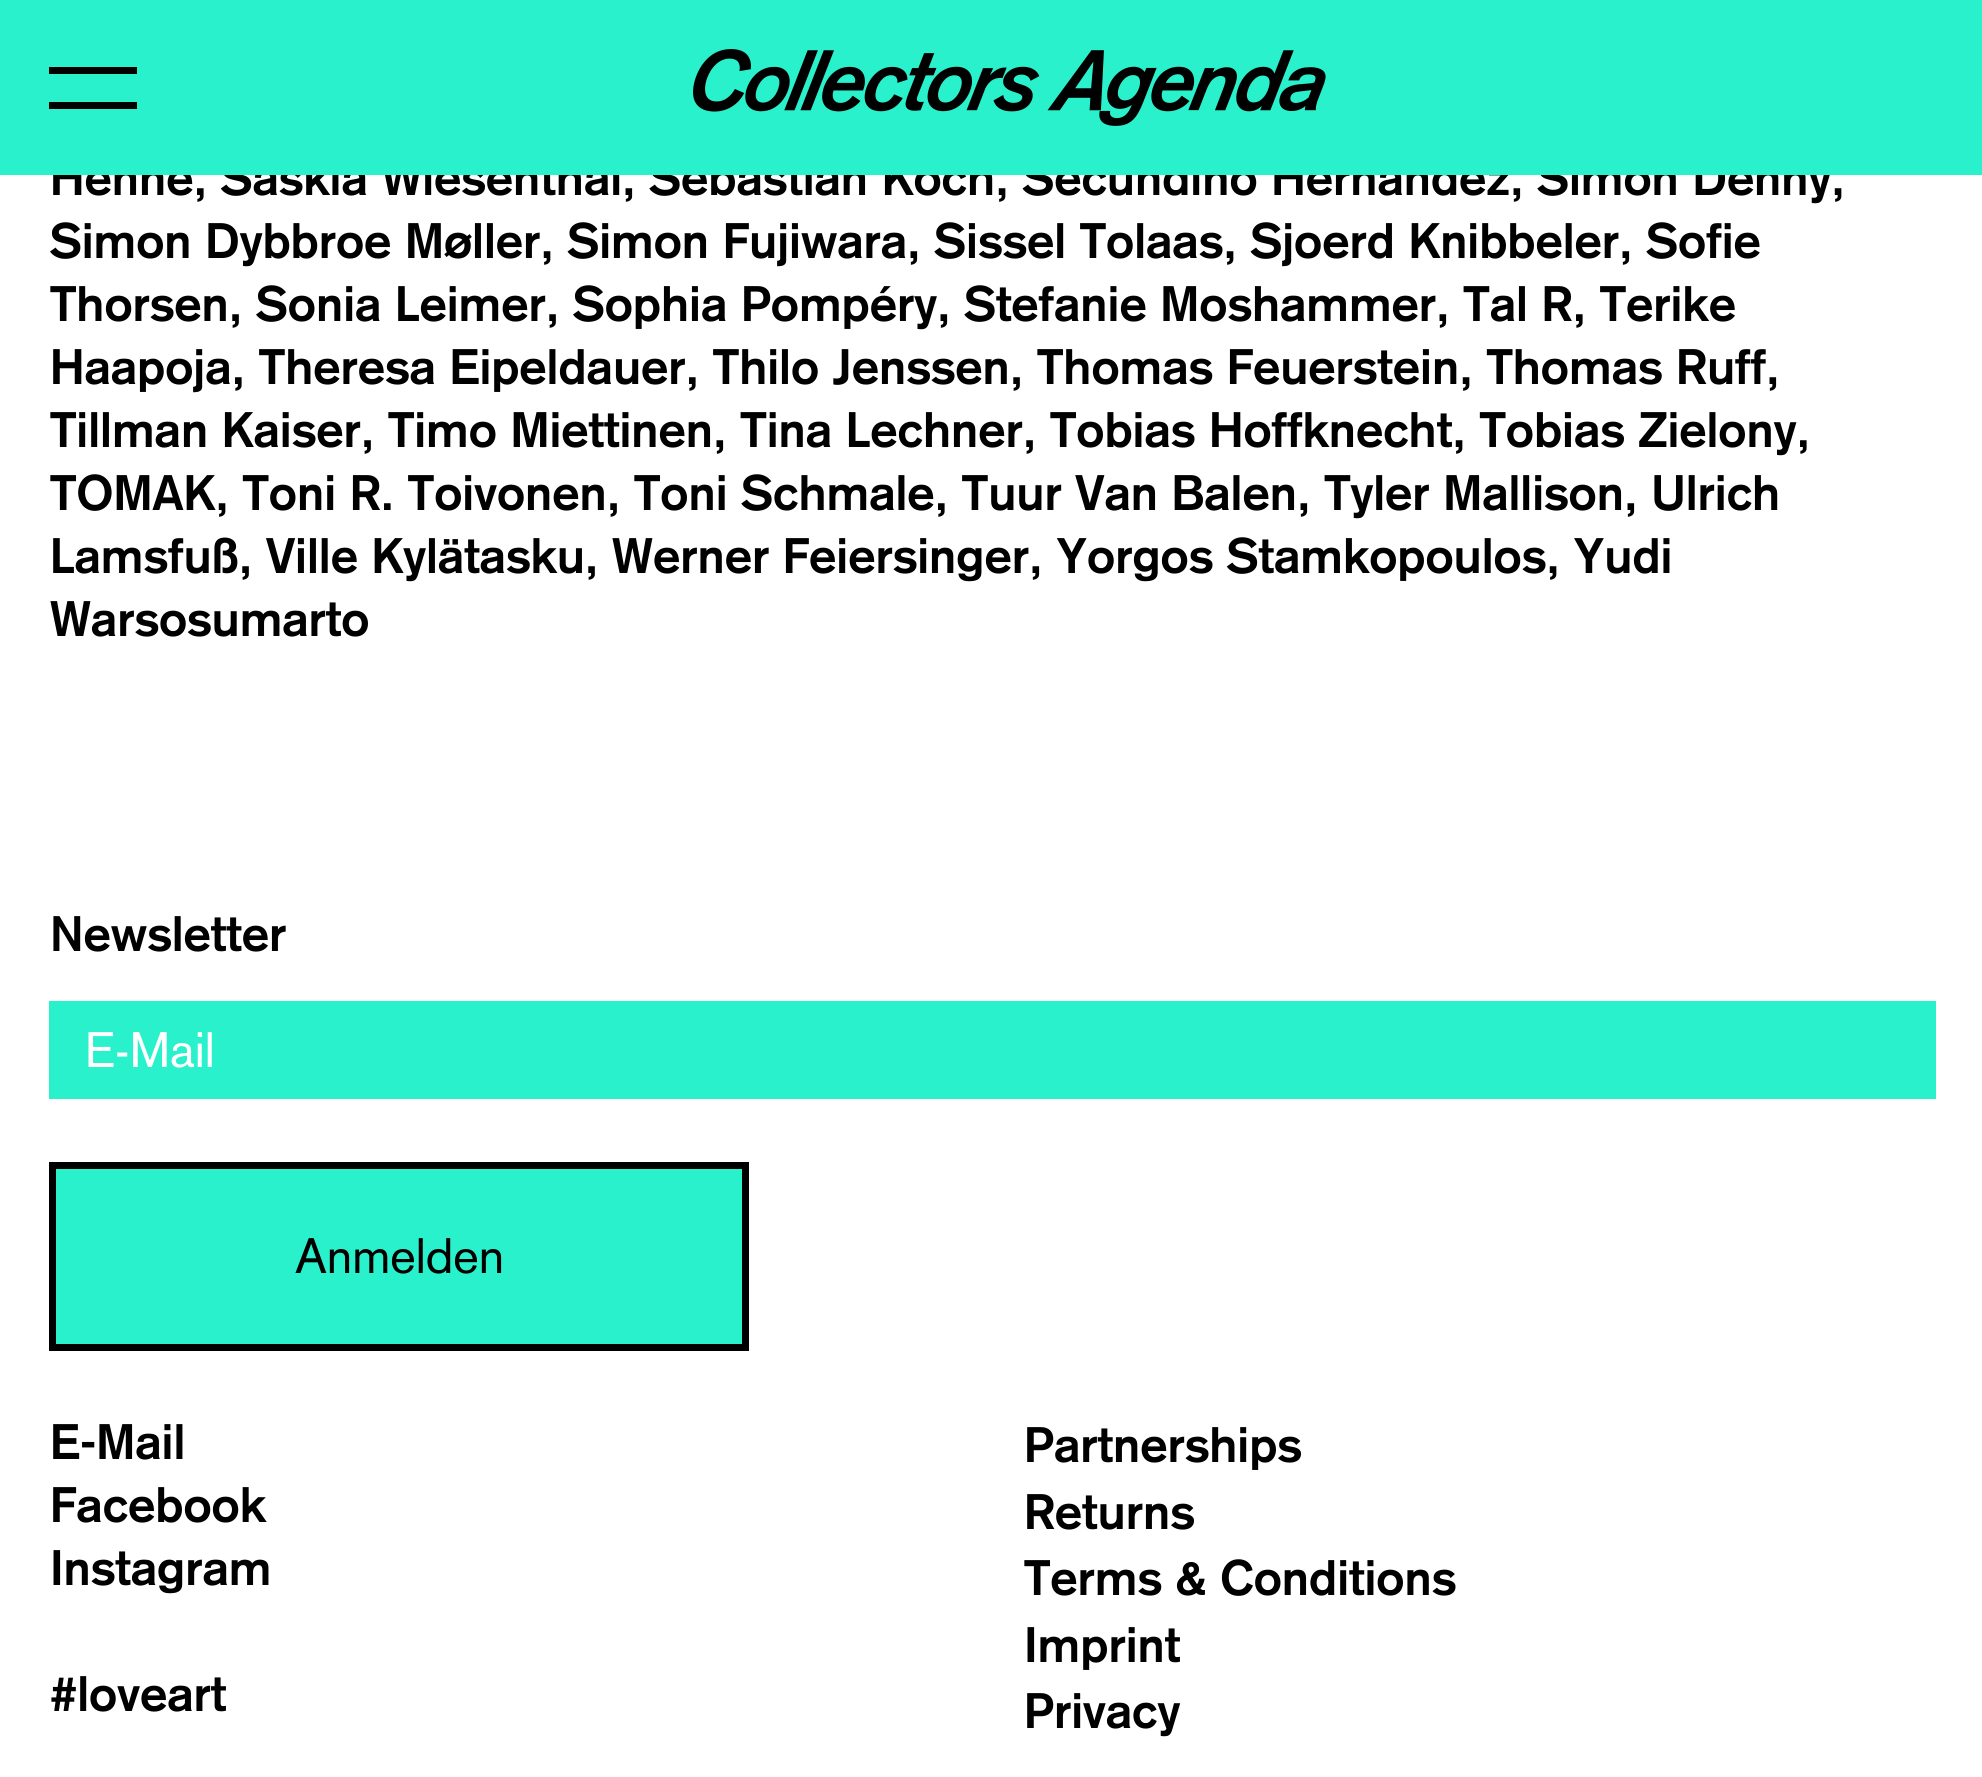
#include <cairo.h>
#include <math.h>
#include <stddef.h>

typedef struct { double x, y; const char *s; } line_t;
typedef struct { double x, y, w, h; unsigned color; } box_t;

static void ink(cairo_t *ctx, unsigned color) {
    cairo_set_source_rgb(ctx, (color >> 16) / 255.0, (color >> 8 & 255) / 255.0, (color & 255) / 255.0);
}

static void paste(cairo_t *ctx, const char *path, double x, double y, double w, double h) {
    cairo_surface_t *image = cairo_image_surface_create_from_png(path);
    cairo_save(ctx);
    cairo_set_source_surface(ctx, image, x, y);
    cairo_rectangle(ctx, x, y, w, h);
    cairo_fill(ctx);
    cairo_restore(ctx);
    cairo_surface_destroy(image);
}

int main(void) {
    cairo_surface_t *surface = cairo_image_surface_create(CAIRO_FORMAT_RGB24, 1982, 1777);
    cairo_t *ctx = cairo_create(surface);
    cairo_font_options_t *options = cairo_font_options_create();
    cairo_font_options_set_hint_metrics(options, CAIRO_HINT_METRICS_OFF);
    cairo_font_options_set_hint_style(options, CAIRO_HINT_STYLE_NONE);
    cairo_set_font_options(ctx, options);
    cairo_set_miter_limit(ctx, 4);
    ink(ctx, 0xFFFFFF);
    cairo_paint(ctx);
    cairo_select_font_face(ctx, "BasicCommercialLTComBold", CAIRO_FONT_SLANT_NORMAL, CAIRO_FONT_WEIGHT_BOLD);
    cairo_set_font_size(ctx, 49);
    ink(ctx, 0x000000);
    cairo_move_to(ctx, 50, 195);
    cairo_show_text(ctx, "Henne, Saskia Wiesenthal, Sebastian Koch, Secundino Hernandez, Simon Denny,");
    {
        static const box_t items[] = {
            {0, 0, 1982, 175, 0x29F1CC},
            {49, 67, 88, 7, 0x000000},
            {49, 102, 88, 7, 0x000000},
        };
        for (size_t i = 0; i < sizeof items / sizeof *items; i++) {
            ink(ctx, items[i].color);
            cairo_rectangle(ctx, items[i].x, items[i].y, items[i].w, items[i].h);
            cairo_fill(ctx);
        }
    }
    paste(ctx, "media/1.png", 693, 49, 633, 77);
    {
        static const line_t items[] = {
            {50, 258, "Simon Dybbroe Møller, Simon Fujiwara, Sissel Tolaas, Sjoerd Knibbeler, Sofie"},
            {50, 321, "Thorsen, Sonia Leimer, Sophia Pompéry, Stefanie Moshammer, Tal R, Terike"},
            {50, 384, "Haapoja, Theresa Eipeldauer, Thilo Jenssen, Thomas Feuerstein, Thomas Ruff,"},
            {50, 447, "Tillman Kaiser, Timo Miettinen, Tina Lechner, Tobias Hoffknecht, Tobias Zielony,"},
            {50, 510, "TOMAK, Toni R. Toivonen, Toni Schmale, Tuur Van Balen, Tyler Mallison, Ulrich"},
            {50, 573, "Lamsfuß, Ville Kylätasku, Werner Feiersinger, Yorgos Stamkopoulos, Yudi"},
            {50, 636, "Warsosumarto"},
            {50, 951, "Newsletter"},
        };
        for (size_t i = 0; i < sizeof items / sizeof *items; i++) {
            cairo_move_to(ctx, items[i].x, items[i].y);
            cairo_show_text(ctx, items[i].s);
        }
    }
    ink(ctx, 0x29F1CC);
    cairo_rectangle(ctx, 49, 1001, 1887, 98);
    cairo_fill(ctx);
    cairo_select_font_face(ctx, "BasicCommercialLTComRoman", CAIRO_FONT_SLANT_NORMAL, CAIRO_FONT_WEIGHT_NORMAL);
    ink(ctx, 0xFFFFFF);
    cairo_move_to(ctx, 85, 1067);
    cairo_show_text(ctx, "E-Mail");
    ink(ctx, 0x29F1CC);
    cairo_rectangle(ctx, 52.5, 1165.5, 693, 182);
    cairo_fill_preserve(ctx);
    ink(ctx, 0x000000);
    cairo_set_line_width(ctx, 7);
    cairo_stroke(ctx);
    cairo_move_to(ctx, 295, 1273);
    cairo_show_text(ctx, "Anmelden");
    cairo_select_font_face(ctx, "BasicCommercialLTComBold", CAIRO_FONT_SLANT_NORMAL, CAIRO_FONT_WEIGHT_BOLD);
    {
        static const line_t items[] = {
            {50, 1459, "E-Mail"},
            {50, 1522, "Facebook"},
            {50, 1585, "Instagram"},
            {50, 1711, "#loveart"},
            {1024, 1462, "Partnerships"},
            {1024, 1529, "Returns"},
            {1024, 1595, "Terms & Conditions"},
            {1024, 1662, "Imprint"},
            {1024, 1728, "Privacy"},
        };
        for (size_t i = 0; i < sizeof items / sizeof *items; i++) {
            cairo_move_to(ctx, items[i].x, items[i].y);
            cairo_show_text(ctx, items[i].s);
        }
    }
    cairo_surface_write_to_png(surface, "image.png");
    cairo_font_options_destroy(options);
    cairo_destroy(ctx);
    cairo_surface_destroy(surface);
    return 0;
}
